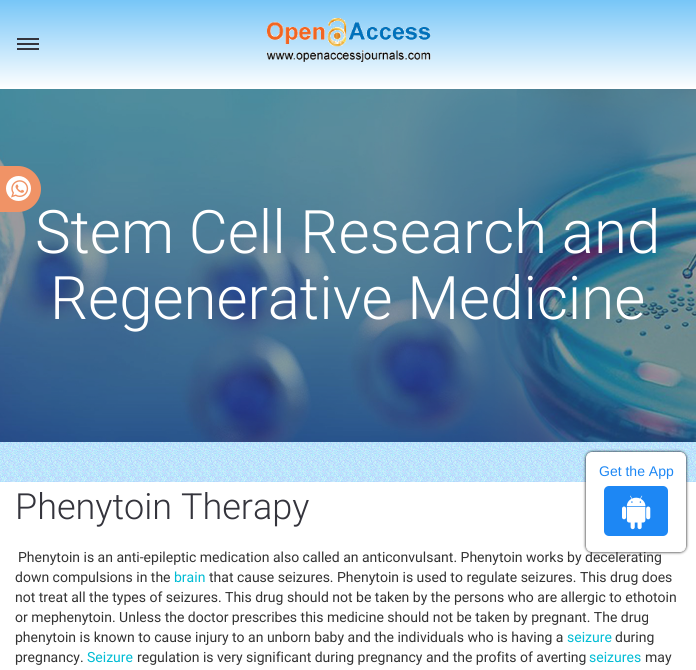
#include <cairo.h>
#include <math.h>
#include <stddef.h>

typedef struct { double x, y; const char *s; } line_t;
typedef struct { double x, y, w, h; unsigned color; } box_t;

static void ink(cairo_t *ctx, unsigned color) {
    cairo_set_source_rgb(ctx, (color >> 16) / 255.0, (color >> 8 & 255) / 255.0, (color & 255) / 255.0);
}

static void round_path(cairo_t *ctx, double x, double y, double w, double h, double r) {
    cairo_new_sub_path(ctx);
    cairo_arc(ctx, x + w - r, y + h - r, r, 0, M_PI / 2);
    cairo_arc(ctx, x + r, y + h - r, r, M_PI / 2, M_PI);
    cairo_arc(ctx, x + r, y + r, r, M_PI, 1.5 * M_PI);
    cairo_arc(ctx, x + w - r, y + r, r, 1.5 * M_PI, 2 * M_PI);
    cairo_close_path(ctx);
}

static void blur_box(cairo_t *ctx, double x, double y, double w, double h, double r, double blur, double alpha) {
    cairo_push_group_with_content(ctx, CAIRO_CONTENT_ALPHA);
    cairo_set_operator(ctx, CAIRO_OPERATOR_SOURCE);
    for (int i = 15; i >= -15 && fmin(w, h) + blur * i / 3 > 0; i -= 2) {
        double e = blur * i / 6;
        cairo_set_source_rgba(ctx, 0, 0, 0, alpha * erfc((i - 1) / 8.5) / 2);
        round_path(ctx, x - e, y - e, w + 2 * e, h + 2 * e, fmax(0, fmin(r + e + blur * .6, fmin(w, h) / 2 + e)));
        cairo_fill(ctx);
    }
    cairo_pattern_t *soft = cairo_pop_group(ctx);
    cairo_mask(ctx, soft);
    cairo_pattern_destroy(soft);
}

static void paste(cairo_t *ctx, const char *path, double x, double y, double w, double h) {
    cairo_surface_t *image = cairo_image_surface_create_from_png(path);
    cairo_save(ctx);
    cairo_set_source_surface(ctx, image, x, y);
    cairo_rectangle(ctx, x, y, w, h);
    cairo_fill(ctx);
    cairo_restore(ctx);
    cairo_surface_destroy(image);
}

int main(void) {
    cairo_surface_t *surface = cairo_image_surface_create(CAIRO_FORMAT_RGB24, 696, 670);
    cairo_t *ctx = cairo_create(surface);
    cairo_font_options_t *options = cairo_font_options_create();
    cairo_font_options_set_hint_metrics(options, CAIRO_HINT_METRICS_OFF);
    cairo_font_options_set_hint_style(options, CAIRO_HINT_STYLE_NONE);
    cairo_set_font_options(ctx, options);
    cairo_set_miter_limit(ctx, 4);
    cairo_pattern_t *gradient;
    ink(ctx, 0xFFFFFF);
    cairo_paint(ctx);
    gradient = cairo_pattern_create_linear(348, 0, 348, 89);
    cairo_pattern_add_color_stop_rgba(gradient, 0, 0.467, 0.776, 0.969, 1);
    cairo_pattern_add_color_stop_rgba(gradient, 1, 1, 1, 1, 1);
    cairo_set_source(ctx, gradient);
    cairo_pattern_destroy(gradient);
    cairo_rectangle(ctx, 0, 0, 696, 87);
    cairo_fill(ctx);
    {
        static const box_t items[] = {
            {17, 48, 22, 2, 0x34343C},
            {17, 38, 22, 2, 0x34343C},
            {17, 43, 22, 2, 0x34343C},
        };
        for (size_t i = 0; i < sizeof items / sizeof *items; i++) {
            ink(ctx, items[i].color);
            cairo_rectangle(ctx, items[i].x, items[i].y, items[i].w, items[i].h);
            cairo_fill(ctx);
        }
    }
    paste(ctx, "media/1.png", 266, 18, 165, 44);
    paste(ctx, "media/3.png", 0, 89, 696, 353);
    cairo_select_font_face(ctx, "Roboto Light", CAIRO_FONT_SLANT_NORMAL, CAIRO_FONT_WEIGHT_NORMAL);
    cairo_set_font_size(ctx, 60);
    ink(ctx, 0xFFFFFF);
    cairo_move_to(ctx, 35, 253);
    cairo_show_text(ctx, "Stem Cell Research and");
    ink(ctx, 0xF09366);
    cairo_new_path(ctx);
    cairo_move_to(ctx, -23, 166);
    cairo_line_to(ctx, 18, 166);
    cairo_curve_to(ctx, 30.5, 166, 41, 176.5, 41, 189);
    cairo_curve_to(ctx, 41, 201.5, 30.5, 212, 18, 212);
    cairo_line_to(ctx, -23, 212);
    cairo_close_path(ctx);
    cairo_fill(ctx);
    ink(ctx, 0xFFFFFF);
    cairo_arc(ctx, 18.5, 188.5, 12.5, 0, 2 * M_PI);
    cairo_fill(ctx);
    paste(ctx, "media/2.png", 11, 180, 18, 18);
    cairo_move_to(ctx, 50, 319);
    cairo_show_text(ctx, "Regenerative Medicine");
    paste(ctx, "media/5.png", 0, 442, 696, 40);
    ink(ctx, 0x000000);
    blur_box(ctx, 586, 452, 100, 100, 6, 1.5, 1);
    cairo_select_font_face(ctx, "Roboto", CAIRO_FONT_SLANT_NORMAL, CAIRO_FONT_WEIGHT_NORMAL);
    cairo_set_font_size(ctx, 14);
    ink(ctx, 0x333333);
    cairo_move_to(ctx, 18, 562);
    cairo_show_text(ctx, "Phenytoin is an anti-epileptic medication also called an anticonvulsant. Phenytoin works by decelerating");
    ink(ctx, 0xFFFFFF);
    round_path(ctx, 586.5, 452.5, 99, 99, 5.5);
    cairo_fill_preserve(ctx);
    cairo_set_line_width(ctx, 1);
    cairo_stroke(ctx);
    cairo_select_font_face(ctx, "Liberation Sans", CAIRO_FONT_SLANT_NORMAL, CAIRO_FONT_WEIGHT_NORMAL);
    ink(ctx, 0x1D87F4);
    cairo_move_to(ctx, 599, 476);
    cairo_show_text(ctx, "Get the App");
    round_path(ctx, 604, 486, 64, 50, 5);
    cairo_fill(ctx);
    paste(ctx, "media/4.png", 622, 495, 29, 35);
    cairo_select_font_face(ctx, "Roboto Light", CAIRO_FONT_SLANT_NORMAL, CAIRO_FONT_WEIGHT_NORMAL);
    cairo_set_font_size(ctx, 36);
    ink(ctx, 0x34343C);
    cairo_move_to(ctx, 15, 519);
    cairo_show_text(ctx, "Phenytoin Therapy");
    cairo_select_font_face(ctx, "Roboto", CAIRO_FONT_SLANT_NORMAL, CAIRO_FONT_WEIGHT_NORMAL);
    cairo_set_font_size(ctx, 14);
    ink(ctx, 0x333333);
    cairo_move_to(ctx, 15, 582);
    cairo_show_text(ctx, "down compulsions in the");
    ink(ctx, 0x00BCD4);
    cairo_move_to(ctx, 174, 582);
    cairo_show_text(ctx, "brain");
    ink(ctx, 0x333333);
    {
        static const line_t items[] = {
            {209, 582, "that cause seizures. Phenytoin is used to regulate seizures. This drug does"},
            {15, 602, "not treat all the types of seizures. This drug should not be taken by the persons who are allergic to ethotoin"},
            {15, 622, "or mephenytoin. Unless the doctor prescribes this medicine should not be taken by pregnant. The drug"},
            {15, 642, "phenytoin is known to cause injury to an unborn baby and the individuals who is having a"},
        };
        for (size_t i = 0; i < sizeof items / sizeof *items; i++) {
            cairo_move_to(ctx, items[i].x, items[i].y);
            cairo_show_text(ctx, items[i].s);
        }
    }
    ink(ctx, 0x00BCD4);
    cairo_move_to(ctx, 567, 642);
    cairo_show_text(ctx, "seizure");
    ink(ctx, 0x333333);
    cairo_move_to(ctx, 615, 642);
    cairo_show_text(ctx, "during");
    cairo_move_to(ctx, 15, 662);
    cairo_show_text(ctx, "pregnancy.");
    ink(ctx, 0x00BCD4);
    cairo_move_to(ctx, 87, 662);
    cairo_show_text(ctx, "Seizure");
    ink(ctx, 0x333333);
    cairo_move_to(ctx, 137, 662);
    cairo_show_text(ctx, "regulation is very significant during pregnancy and the profits of averting");
    ink(ctx, 0x00BCD4);
    cairo_move_to(ctx, 589, 662);
    cairo_show_text(ctx, "seizures");
    ink(ctx, 0x333333);
    cairo_move_to(ctx, 645, 662);
    cairo_show_text(ctx, "may");
    cairo_surface_write_to_png(surface, "image.png");
    cairo_font_options_destroy(options);
    cairo_destroy(ctx);
    cairo_surface_destroy(surface);
    return 0;
}
